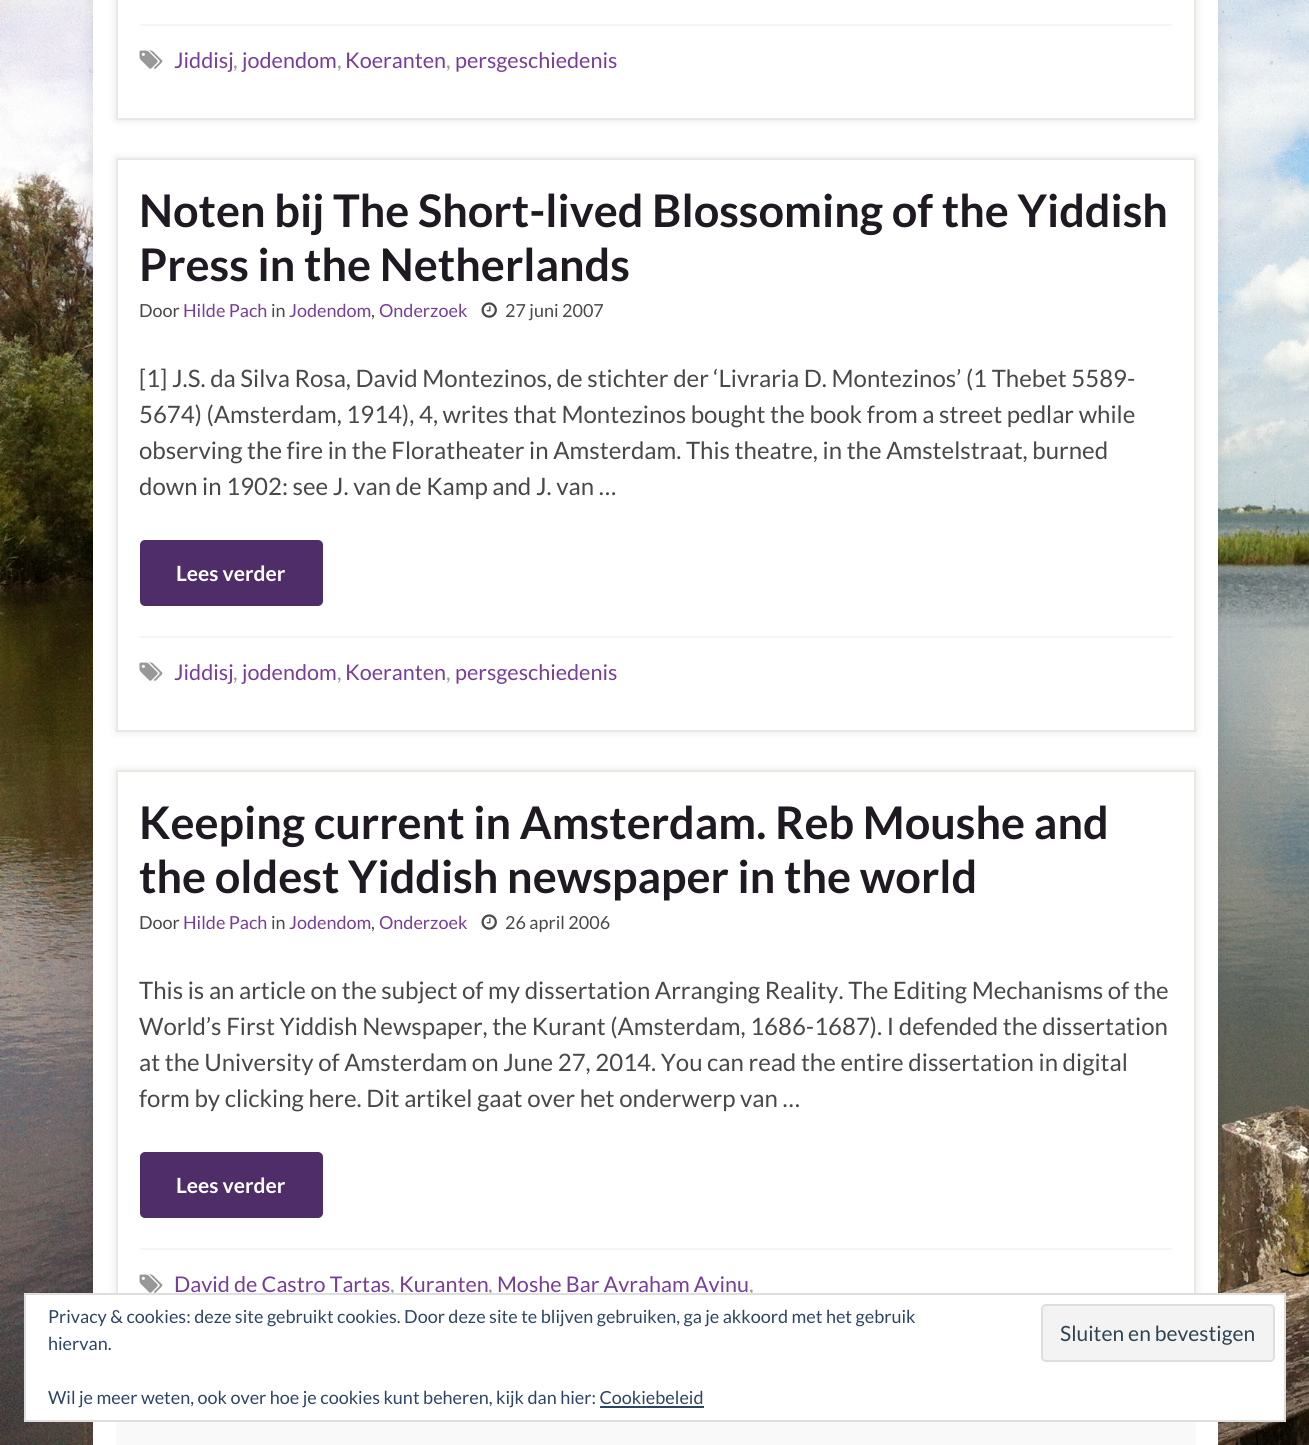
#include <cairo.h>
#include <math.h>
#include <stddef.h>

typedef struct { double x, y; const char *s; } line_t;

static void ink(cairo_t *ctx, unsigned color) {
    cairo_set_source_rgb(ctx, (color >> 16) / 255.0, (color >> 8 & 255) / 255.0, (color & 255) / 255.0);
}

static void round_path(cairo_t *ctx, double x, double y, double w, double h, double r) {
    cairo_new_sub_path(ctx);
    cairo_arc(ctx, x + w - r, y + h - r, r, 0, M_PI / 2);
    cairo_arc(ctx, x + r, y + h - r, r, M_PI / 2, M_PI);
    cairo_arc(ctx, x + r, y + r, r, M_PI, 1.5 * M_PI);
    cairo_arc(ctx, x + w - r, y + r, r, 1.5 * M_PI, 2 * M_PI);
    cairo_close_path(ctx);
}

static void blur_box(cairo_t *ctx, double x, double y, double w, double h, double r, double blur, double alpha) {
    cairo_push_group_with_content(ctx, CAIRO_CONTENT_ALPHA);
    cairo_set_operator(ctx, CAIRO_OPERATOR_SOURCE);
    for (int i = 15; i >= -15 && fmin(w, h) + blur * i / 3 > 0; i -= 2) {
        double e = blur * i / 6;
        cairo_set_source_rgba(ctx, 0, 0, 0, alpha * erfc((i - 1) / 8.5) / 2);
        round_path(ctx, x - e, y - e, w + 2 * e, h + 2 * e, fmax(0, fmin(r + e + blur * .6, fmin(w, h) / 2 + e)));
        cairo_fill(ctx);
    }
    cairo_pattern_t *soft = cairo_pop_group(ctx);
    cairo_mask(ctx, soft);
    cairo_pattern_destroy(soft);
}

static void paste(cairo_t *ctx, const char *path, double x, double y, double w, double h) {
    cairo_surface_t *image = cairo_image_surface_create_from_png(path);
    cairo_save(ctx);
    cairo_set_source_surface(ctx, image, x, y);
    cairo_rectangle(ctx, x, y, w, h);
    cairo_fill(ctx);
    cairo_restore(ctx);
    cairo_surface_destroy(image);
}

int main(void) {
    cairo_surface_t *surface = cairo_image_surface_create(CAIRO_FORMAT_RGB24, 1309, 1445);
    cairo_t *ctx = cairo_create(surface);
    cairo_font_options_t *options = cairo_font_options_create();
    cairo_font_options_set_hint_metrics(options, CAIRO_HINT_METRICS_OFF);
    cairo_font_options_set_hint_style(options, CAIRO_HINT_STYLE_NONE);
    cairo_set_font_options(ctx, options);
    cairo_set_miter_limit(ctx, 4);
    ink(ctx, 0xFFFFFF);
    cairo_paint(ctx);
    paste(ctx, "media/1.png", 0, 0, 1309, 1445);
    ink(ctx, 0x000000);
    blur_box(ctx, 93, -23, 1125, 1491, 0, 7.5, 0.1);
    ink(ctx, 0xFFFFFF);
    cairo_rectangle(ctx, 93, 0, 1125, 1445);
    cairo_fill(ctx);
    ink(ctx, 0x000000);
    blur_box(ctx, 116, -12, 1080, 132, 0, 4, 0.1);
    ink(ctx, 0xFFFFFF);
    cairo_rectangle(ctx, 117, -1, 1078, 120);
    cairo_fill_preserve(ctx);
    ink(ctx, 0xE9E8E3);
    cairo_stroke(ctx);
    ink(ctx, 0xF5F5F5);
    cairo_rectangle(ctx, 140, 24, 1032, 2);
    cairo_fill(ctx);
    paste(ctx, "media/2.png", 139, 50, 24, 19);
    cairo_select_font_face(ctx, "Lato", CAIRO_FONT_SLANT_NORMAL, CAIRO_FONT_WEIGHT_NORMAL);
    cairo_set_font_size(ctx, 21.6);
    ink(ctx, 0x783D98);
    cairo_move_to(ctx, 174, 68);
    cairo_show_text(ctx, "Jiddisj");
    ink(ctx, 0x989898);
    cairo_move_to(ctx, 233, 68);
    cairo_show_text(ctx, ",");
    ink(ctx, 0x783D98);
    cairo_move_to(ctx, 242, 68);
    cairo_show_text(ctx, "jodendom");
    ink(ctx, 0x989898);
    cairo_move_to(ctx, 337, 68);
    cairo_show_text(ctx, ",");
    ink(ctx, 0x783D98);
    cairo_move_to(ctx, 345, 68);
    cairo_show_text(ctx, "Koeranten");
    ink(ctx, 0x989898);
    cairo_move_to(ctx, 446, 68);
    cairo_show_text(ctx, ",");
    ink(ctx, 0x783D98);
    cairo_move_to(ctx, 455, 68);
    cairo_show_text(ctx, "persgeschiedenis");
    ink(ctx, 0x000000);
    blur_box(ctx, 116, 158, 1080, 574, 0, 4, 0.1);
    ink(ctx, 0xFFFFFF);
    cairo_rectangle(ctx, 117, 159, 1078, 572);
    cairo_fill_preserve(ctx);
    ink(ctx, 0xE9E8E3);
    cairo_stroke(ctx);
    cairo_select_font_face(ctx, "Lato", CAIRO_FONT_SLANT_NORMAL, CAIRO_FONT_WEIGHT_BOLD);
    cairo_set_font_size(ctx, 45);
    ink(ctx, 0x1F1A22);
    cairo_move_to(ctx, 139, 227);
    cairo_show_text(ctx, "Noten bij The Short-lived Blossoming of the Yiddish");
    cairo_move_to(ctx, 139, 281);
    cairo_show_text(ctx, "Press in the Netherlands");
    cairo_select_font_face(ctx, "Lato", CAIRO_FONT_SLANT_NORMAL, CAIRO_FONT_WEIGHT_NORMAL);
    cairo_set_font_size(ctx, 18);
    ink(ctx, 0x4A474B);
    cairo_move_to(ctx, 139, 317);
    cairo_show_text(ctx, "Door");
    ink(ctx, 0x783D98);
    cairo_move_to(ctx, 183, 317);
    cairo_show_text(ctx, "Hilde Pach");
    ink(ctx, 0x4A474B);
    cairo_move_to(ctx, 271, 317);
    cairo_show_text(ctx, "in");
    ink(ctx, 0x783D98);
    cairo_move_to(ctx, 289, 317);
    cairo_show_text(ctx, "Jodendom");
    ink(ctx, 0x4A474B);
    cairo_move_to(ctx, 371, 317);
    cairo_show_text(ctx, ",");
    ink(ctx, 0x783D98);
    cairo_move_to(ctx, 379, 317);
    cairo_show_text(ctx, "Onderzoek");
    paste(ctx, "media/3.png", 481, 302, 16, 16);
    ink(ctx, 0x4A474B);
    cairo_move_to(ctx, 505, 317);
    cairo_show_text(ctx, "27 juni 2007");
    cairo_set_font_size(ctx, 24);
    {
        static const line_t items[] = {
            {139, 387, "[1] J.S. da Silva Rosa, David Montezinos, de stichter der ‘Livraria D. Montezinos’ (1 Thebet 5589-"},
            {139, 423, "5674) (Amsterdam, 1914), 4, writes that Montezinos bought the book from a street pedlar while"},
            {139, 459, "observing the fire in the Floratheater in Amsterdam. This theatre, in the Amstelstraat, burned"},
            {139, 495, "down in 1902: see J. van de Kamp and J. van …"},
        };
        for (size_t i = 0; i < sizeof items / sizeof *items; i++) {
            cairo_move_to(ctx, items[i].x, items[i].y);
            cairo_show_text(ctx, items[i].s);
        }
    }
    ink(ctx, 0x4F2D69);
    round_path(ctx, 140, 540, 183, 66, 5);
    cairo_fill(ctx);
    cairo_select_font_face(ctx, "Lato", CAIRO_FONT_SLANT_NORMAL, CAIRO_FONT_WEIGHT_BOLD);
    cairo_set_font_size(ctx, 21);
    ink(ctx, 0xFFFFFF);
    cairo_move_to(ctx, 176, 581);
    cairo_show_text(ctx, "Lees verder");
    ink(ctx, 0xF5F5F5);
    cairo_rectangle(ctx, 140, 636, 1032, 2);
    cairo_fill(ctx);
    paste(ctx, "media/2.png", 139, 662, 24, 19);
    cairo_select_font_face(ctx, "Lato", CAIRO_FONT_SLANT_NORMAL, CAIRO_FONT_WEIGHT_NORMAL);
    cairo_set_font_size(ctx, 21.6);
    ink(ctx, 0x783D98);
    cairo_move_to(ctx, 174, 680);
    cairo_show_text(ctx, "Jiddisj");
    ink(ctx, 0x989898);
    cairo_move_to(ctx, 233, 680);
    cairo_show_text(ctx, ",");
    ink(ctx, 0x783D98);
    cairo_move_to(ctx, 242, 680);
    cairo_show_text(ctx, "jodendom");
    ink(ctx, 0x989898);
    cairo_move_to(ctx, 337, 680);
    cairo_show_text(ctx, ",");
    ink(ctx, 0x783D98);
    cairo_move_to(ctx, 345, 680);
    cairo_show_text(ctx, "Koeranten");
    ink(ctx, 0x989898);
    cairo_move_to(ctx, 446, 680);
    cairo_show_text(ctx, ",");
    ink(ctx, 0x783D98);
    cairo_move_to(ctx, 455, 680);
    cairo_show_text(ctx, "persgeschiedenis");
    ink(ctx, 0x000000);
    blur_box(ctx, 116, 770, 1080, 598, 0, 4, 0.1);
    ink(ctx, 0xFFFFFF);
    cairo_rectangle(ctx, 118, 772, 1076, 521);
    cairo_fill(ctx);
    cairo_rectangle(ctx, 117, 771, 1078, 596);
    ink(ctx, 0xE9E8E3);
    cairo_stroke(ctx);
    cairo_select_font_face(ctx, "Lato", CAIRO_FONT_SLANT_NORMAL, CAIRO_FONT_WEIGHT_BOLD);
    cairo_set_font_size(ctx, 45);
    ink(ctx, 0x1F1A22);
    cairo_move_to(ctx, 139, 839);
    cairo_show_text(ctx, "Keeping current in Amsterdam. Reb Moushe and");
    cairo_move_to(ctx, 139, 893);
    cairo_show_text(ctx, "the oldest Yiddish newspaper in the world");
    cairo_select_font_face(ctx, "Lato", CAIRO_FONT_SLANT_NORMAL, CAIRO_FONT_WEIGHT_NORMAL);
    cairo_set_font_size(ctx, 18);
    ink(ctx, 0x4A474B);
    cairo_move_to(ctx, 139, 929);
    cairo_show_text(ctx, "Door");
    ink(ctx, 0x783D98);
    cairo_move_to(ctx, 183, 929);
    cairo_show_text(ctx, "Hilde Pach");
    ink(ctx, 0x4A474B);
    cairo_move_to(ctx, 271, 929);
    cairo_show_text(ctx, "in");
    ink(ctx, 0x783D98);
    cairo_move_to(ctx, 289, 929);
    cairo_show_text(ctx, "Jodendom");
    ink(ctx, 0x4A474B);
    cairo_move_to(ctx, 371, 929);
    cairo_show_text(ctx, ",");
    ink(ctx, 0x783D98);
    cairo_move_to(ctx, 379, 929);
    cairo_show_text(ctx, "Onderzoek");
    paste(ctx, "media/3.png", 481, 914, 16, 16);
    ink(ctx, 0x4A474B);
    cairo_move_to(ctx, 505, 929);
    cairo_show_text(ctx, "26 april 2006");
    cairo_set_font_size(ctx, 24);
    {
        static const line_t items[] = {
            {139, 999, "This is an article on the subject of my dissertation Arranging Reality. The Editing Mechanisms of the"},
            {139, 1035, "World’s First Yiddish Newspaper, the Kurant (Amsterdam, 1686-1687). I defended the dissertation"},
            {139, 1071, "at the University of Amsterdam on June 27, 2014. You can read the entire dissertation in digital"},
            {139, 1107, "form by clicking here. Dit artikel gaat over het onderwerp van …"},
        };
        for (size_t i = 0; i < sizeof items / sizeof *items; i++) {
            cairo_move_to(ctx, items[i].x, items[i].y);
            cairo_show_text(ctx, items[i].s);
        }
    }
    ink(ctx, 0x4F2D69);
    round_path(ctx, 140, 1152, 183, 66, 5);
    cairo_fill(ctx);
    cairo_select_font_face(ctx, "Lato", CAIRO_FONT_SLANT_NORMAL, CAIRO_FONT_WEIGHT_BOLD);
    cairo_set_font_size(ctx, 21);
    ink(ctx, 0xFFFFFF);
    cairo_move_to(ctx, 176, 1193);
    cairo_show_text(ctx, "Lees verder");
    ink(ctx, 0xF5F5F5);
    cairo_rectangle(ctx, 140, 1248, 1032, 2);
    cairo_fill(ctx);
    paste(ctx, "media/2.png", 139, 1274, 24, 19);
    cairo_select_font_face(ctx, "Lato", CAIRO_FONT_SLANT_NORMAL, CAIRO_FONT_WEIGHT_NORMAL);
    cairo_set_font_size(ctx, 21.6);
    ink(ctx, 0x783D98);
    cairo_move_to(ctx, 174, 1292);
    cairo_show_text(ctx, "David de Castro Tartas");
    ink(ctx, 0x989898);
    cairo_move_to(ctx, 390, 1292);
    cairo_show_text(ctx, ",");
    ink(ctx, 0x783D98);
    cairo_move_to(ctx, 399, 1292);
    cairo_show_text(ctx, "Kuranten");
    ink(ctx, 0x989898);
    cairo_move_to(ctx, 488, 1292);
    cairo_show_text(ctx, ",");
    ink(ctx, 0x783D98);
    cairo_move_to(ctx, 497, 1292);
    cairo_show_text(ctx, "Moshe Bar Avraham Avinu");
    ink(ctx, 0x989898);
    cairo_move_to(ctx, 749, 1292);
    cairo_show_text(ctx, ",");
    ink(ctx, 0xF9F9F9);
    cairo_rectangle(ctx, 116, 1422, 1080, 23);
    cairo_fill(ctx);
    ink(ctx, 0xFFFFFF);
    cairo_rectangle(ctx, 25, 1294, 1260, 127);
    cairo_fill_preserve(ctx);
    ink(ctx, 0xDEDEDE);
    cairo_stroke(ctx);
    cairo_set_font_size(ctx, 18);
    ink(ctx, 0x2E4467);
    cairo_move_to(ctx, 48, 1323);
    cairo_show_text(ctx, "Privacy & cookies: deze site gebruikt cookies. Door deze site te blijven gebruiken, ga je akkoord met het gebruik");
    cairo_move_to(ctx, 48, 1350);
    cairo_show_text(ctx, "hiervan.");
    ink(ctx, 0xF3F3F3);
    round_path(ctx, 1042, 1305, 232, 56, 4);
    cairo_fill_preserve(ctx);
    ink(ctx, 0xDEDEDE);
    cairo_stroke(ctx);
    cairo_set_font_size(ctx, 21);
    ink(ctx, 0x2E4453);
    cairo_move_to(ctx, 1060, 1341);
    cairo_show_text(ctx, "Sluiten en bevestigen");
    cairo_set_font_size(ctx, 18);
    ink(ctx, 0x2E4467);
    cairo_move_to(ctx, 48, 1404);
    cairo_show_text(ctx, "Wil je meer weten, ook over hoe je cookies kunt beheren, kijk dan hier: Cookiebeleid");
    cairo_rectangle(ctx, 600, 1406, 104, 2);
    cairo_fill(ctx);
    cairo_surface_write_to_png(surface, "image.png");
    cairo_font_options_destroy(options);
    cairo_destroy(ctx);
    cairo_surface_destroy(surface);
    return 0;
}
